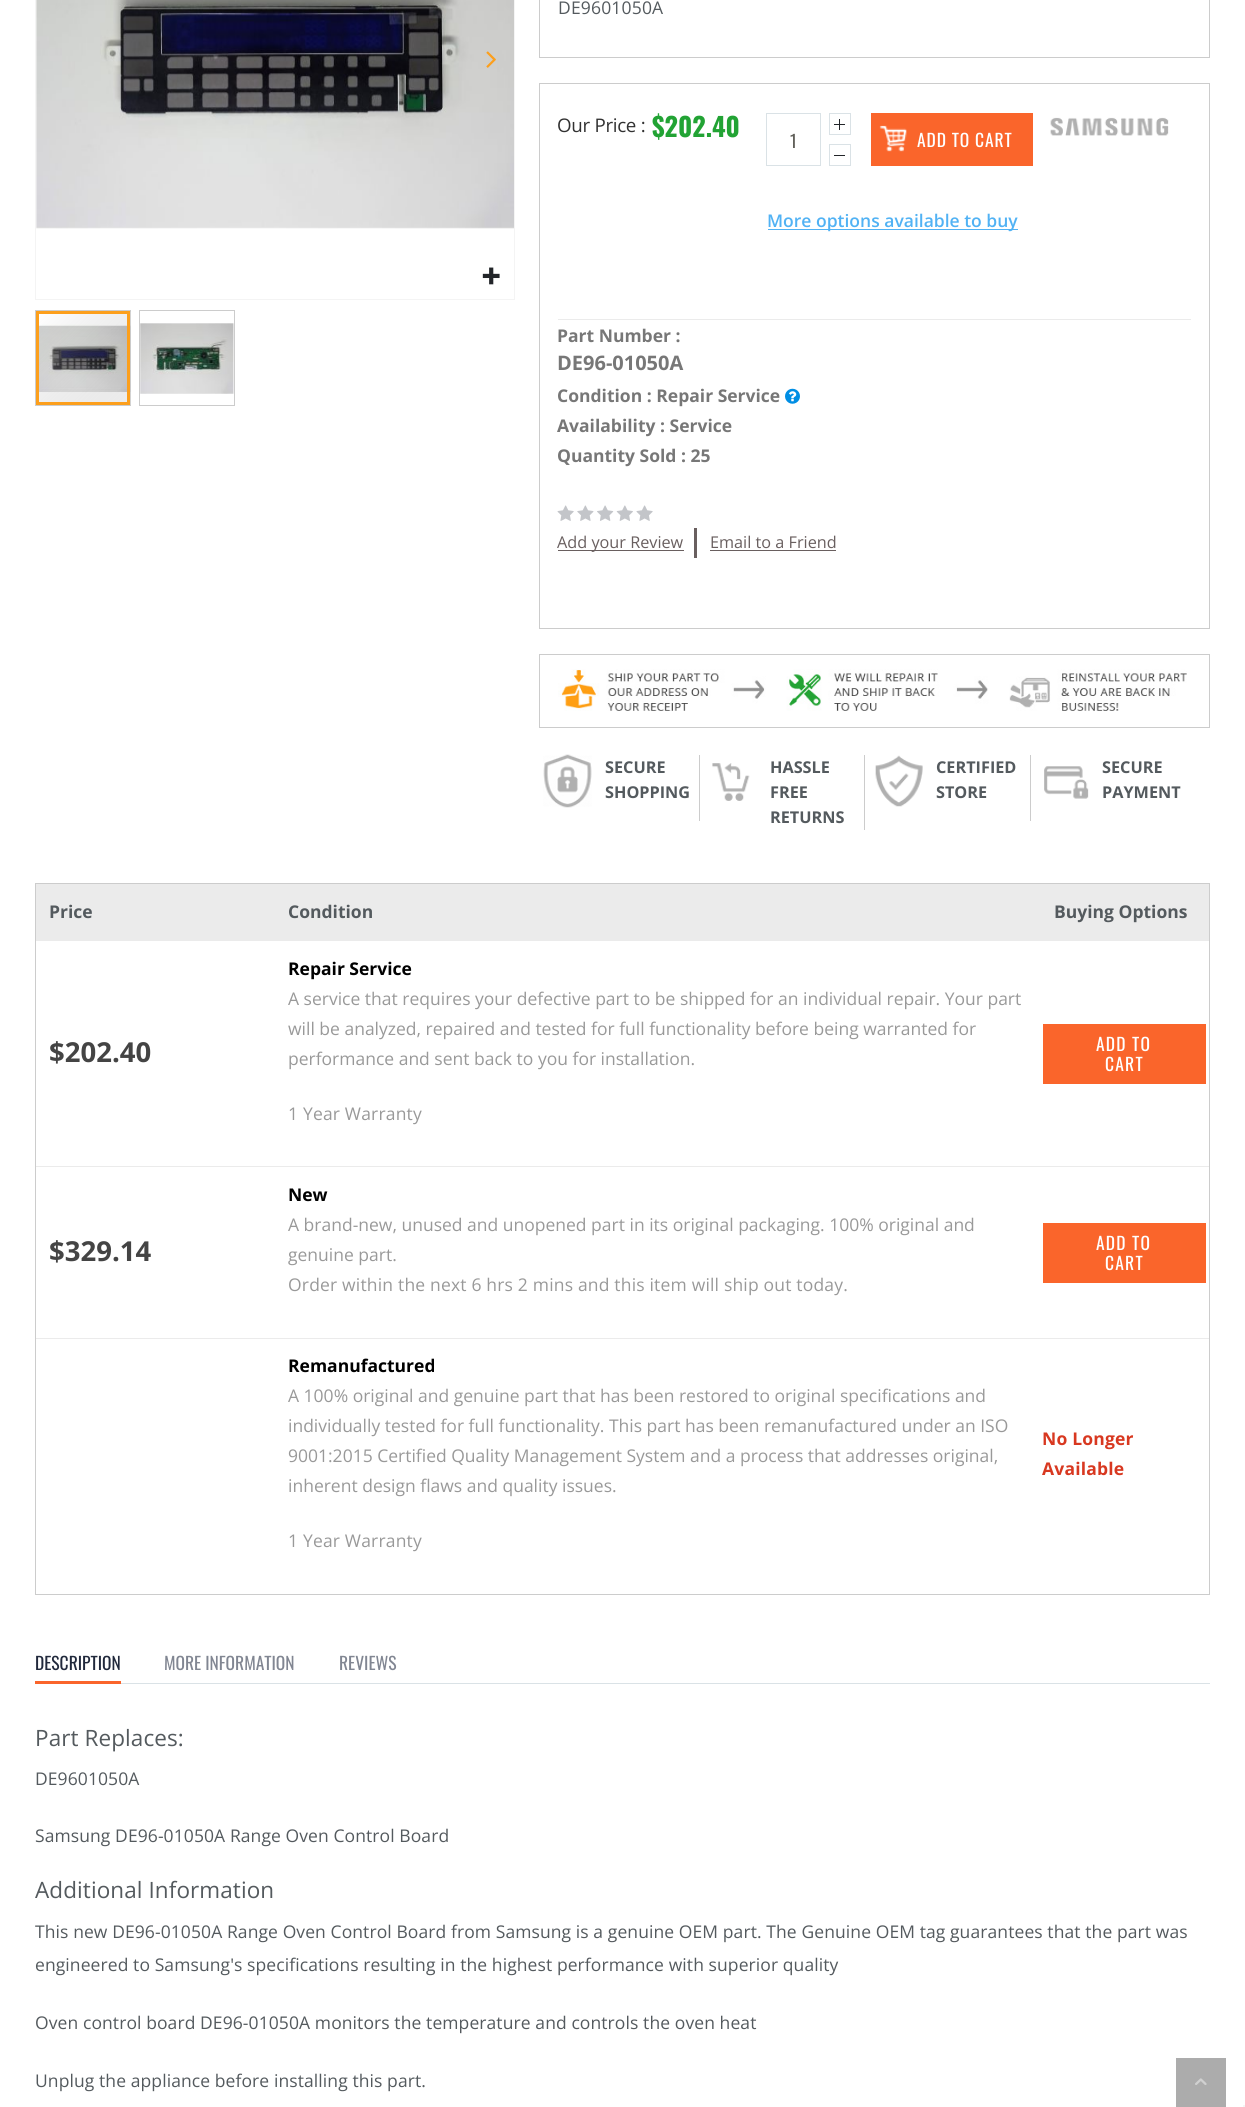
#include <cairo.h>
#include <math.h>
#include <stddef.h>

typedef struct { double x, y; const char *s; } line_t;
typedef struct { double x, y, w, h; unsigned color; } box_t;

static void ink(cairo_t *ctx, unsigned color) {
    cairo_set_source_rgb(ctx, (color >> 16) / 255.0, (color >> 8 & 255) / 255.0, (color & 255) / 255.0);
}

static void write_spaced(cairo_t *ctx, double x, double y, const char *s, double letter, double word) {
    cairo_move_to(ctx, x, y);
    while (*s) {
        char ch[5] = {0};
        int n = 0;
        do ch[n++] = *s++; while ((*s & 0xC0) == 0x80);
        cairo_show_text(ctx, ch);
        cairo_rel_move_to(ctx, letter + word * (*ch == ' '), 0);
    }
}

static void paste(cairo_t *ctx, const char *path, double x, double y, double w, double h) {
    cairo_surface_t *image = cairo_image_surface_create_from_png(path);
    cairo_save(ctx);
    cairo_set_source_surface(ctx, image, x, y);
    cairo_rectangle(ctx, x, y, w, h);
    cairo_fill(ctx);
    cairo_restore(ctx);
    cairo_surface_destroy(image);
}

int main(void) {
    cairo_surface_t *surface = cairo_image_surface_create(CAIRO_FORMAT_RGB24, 1245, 2107);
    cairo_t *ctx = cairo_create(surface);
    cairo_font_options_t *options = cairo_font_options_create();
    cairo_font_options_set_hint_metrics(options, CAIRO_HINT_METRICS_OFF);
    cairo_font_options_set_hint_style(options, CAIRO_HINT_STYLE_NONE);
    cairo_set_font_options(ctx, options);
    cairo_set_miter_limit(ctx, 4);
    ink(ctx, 0xFFFFFF);
    cairo_paint(ctx);
    cairo_rectangle(ctx, 35.5, -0.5, 479, 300);
    ink(ctx, 0xF4F4F4);
    cairo_set_line_width(ctx, 1);
    cairo_stroke(ctx);
    paste(ctx, "media/1.png", 36, 0, 478, 229);
    paste(ctx, "media/2.png", 486, 51, 10, 17);
    paste(ctx, "media/3.png", 482, 267, 18, 18);
    cairo_rectangle(ctx, 35.5, 310.5, 95, 95);
    ink(ctx, 0xCCCCCC);
    cairo_stroke(ctx);
    paste(ctx, "media/4.png", 39, 312, 92, 93);
    cairo_rectangle(ctx, 139.5, 310.5, 95, 95);
    cairo_stroke(ctx);
    paste(ctx, "media/5.png", 140, 323, 94, 71);
    cairo_rectangle(ctx, 37.5, 312.5, 91, 91);
    ink(ctx, 0xFC9F1C);
    cairo_set_line_width(ctx, 3);
    cairo_stroke(ctx);
    cairo_rectangle(ctx, 539.5, -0.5, 670, 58);
    ink(ctx, 0xCCCCCC);
    cairo_set_line_width(ctx, 1);
    cairo_stroke(ctx);
    cairo_select_font_face(ctx, "Open Sans", CAIRO_FONT_SLANT_NORMAL, CAIRO_FONT_WEIGHT_NORMAL);
    cairo_set_font_size(ctx, 17.5);
    ink(ctx, 0x545A5E);
    write_spaced(ctx, 558, 14, "DE9601050A", 0.18, 0);
    cairo_rectangle(ctx, 539.5, 83.5, 670, 545);
    ink(ctx, 0xCCCCCC);
    cairo_stroke(ctx);
    ink(ctx, 0xEBEBEB);
    cairo_rectangle(ctx, 558, 319, 633, 1);
    cairo_fill(ctx);
    cairo_set_font_size(ctx, 18.75);
    ink(ctx, 0x313131);
    write_spaced(ctx, 557, 132, "Our Price :", -0.3, 0);
    cairo_select_font_face(ctx, "Oswald", CAIRO_FONT_SLANT_NORMAL, CAIRO_FONT_WEIGHT_BOLD);
    cairo_set_font_size(ctx, 26);
    ink(ctx, 0x22A334);
    cairo_move_to(ctx, 652, 137);
    cairo_show_text(ctx, "$202.40");
    paste(ctx, "media/6.png", 1050, 117, 119, 19);
    ink(ctx, 0xFA652B);
    cairo_rectangle(ctx, 871, 113, 162, 53);
    cairo_fill(ctx);
    paste(ctx, "media/7.png", 879, 125, 28, 27);
    cairo_select_font_face(ctx, "Oswald", CAIRO_FONT_SLANT_NORMAL, CAIRO_FONT_WEIGHT_NORMAL);
    cairo_set_font_size(ctx, 17.5);
    ink(ctx, 0xFFFFFF);
    write_spaced(ctx, 917, 147, "ADD TO CART", 0.9, 0);
    ink(ctx, 0x51B2F4);
    cairo_rectangle(ctx, 768, 229, 250, 1);
    cairo_fill(ctx);
    cairo_select_font_face(ctx, "Open Sans SemiBold", CAIRO_FONT_SLANT_NORMAL, CAIRO_FONT_WEIGHT_NORMAL);
    cairo_move_to(ctx, 767, 227);
    cairo_show_text(ctx, "More options available to buy");
    cairo_rectangle(ctx, 766.5, 113.5, 54, 52);
    ink(ctx, 0xDAE2E6);
    cairo_stroke(ctx);
    cairo_select_font_face(ctx, "Oswald", CAIRO_FONT_SLANT_NORMAL, CAIRO_FONT_WEIGHT_NORMAL);
    ink(ctx, 0x61605A);
    cairo_move_to(ctx, 790, 148);
    cairo_show_text(ctx, "1");
    cairo_rectangle(ctx, 829.5, 113.5, 21, 21);
    ink(ctx, 0xDAE2E6);
    cairo_stroke(ctx);
    ink(ctx, 0x222529);
    cairo_rectangle(ctx, 834, 124, 11, 1);
    cairo_fill(ctx);
    cairo_rectangle(ctx, 839, 119, 1, 11);
    cairo_fill(ctx);
    cairo_rectangle(ctx, 829.5, 144.5, 21, 21);
    ink(ctx, 0xDAE2E6);
    cairo_stroke(ctx);
    ink(ctx, 0x222529);
    cairo_rectangle(ctx, 834, 155, 11, 1);
    cairo_fill(ctx);
    cairo_select_font_face(ctx, "Open Sans", CAIRO_FONT_SLANT_NORMAL, CAIRO_FONT_WEIGHT_BOLD);
    ink(ctx, 0x777777);
    cairo_move_to(ctx, 557, 342);
    cairo_show_text(ctx, "Part Number :");
    cairo_set_font_size(ctx, 20);
    cairo_move_to(ctx, 557, 370);
    cairo_show_text(ctx, "DE96-01050A");
    cairo_set_font_size(ctx, 17.5);
    cairo_move_to(ctx, 557, 402);
    cairo_show_text(ctx, "Condition : Repair Service");
    paste(ctx, "media/8.png", 785, 388, 15, 16);
    cairo_move_to(ctx, 557, 432);
    cairo_show_text(ctx, "Availability : Service");
    cairo_move_to(ctx, 557, 462);
    cairo_show_text(ctx, "Quantity Sold : 25");
    paste(ctx, "media/9.png", 557, 505, 96, 16);
    ink(ctx, 0x695F5F);
    cairo_rectangle(ctx, 694, 528, 3, 30);
    cairo_fill(ctx);
    cairo_rectangle(ctx, 558, 550, 126, 1);
    cairo_fill(ctx);
    cairo_select_font_face(ctx, "Open Sans", CAIRO_FONT_SLANT_NORMAL, CAIRO_FONT_WEIGHT_NORMAL);
    cairo_set_font_size(ctx, 16.25);
    cairo_move_to(ctx, 557, 548);
    cairo_show_text(ctx, "Add your Review");
    cairo_move_to(ctx, 710, 548);
    cairo_show_text(ctx, "Email to a Friend");
    cairo_rectangle(ctx, 710, 550, 126, 1);
    cairo_fill(ctx);
    cairo_rectangle(ctx, 539.5, 654.5, 670, 73);
    ink(ctx, 0xCCCCCC);
    cairo_stroke(ctx);
    paste(ctx, "media/10.png", 558, 669, 629, 42);
    cairo_rectangle(ctx, 699, 755, 1, 66);
    cairo_fill(ctx);
    paste(ctx, "media/11.png", 543, 754, 49, 54);
    cairo_select_font_face(ctx, "Open Sans", CAIRO_FONT_SLANT_NORMAL, CAIRO_FONT_WEIGHT_BOLD);
    ink(ctx, 0x545A5E);
    cairo_move_to(ctx, 605, 773);
    cairo_show_text(ctx, "SECURE");
    cairo_move_to(ctx, 605, 798);
    cairo_show_text(ctx, "SHOPPING");
    ink(ctx, 0xCCCCCC);
    cairo_rectangle(ctx, 864, 755, 1, 75);
    cairo_fill(ctx);
    paste(ctx, "media/12.png", 712, 763, 38, 38);
    ink(ctx, 0x545A5E);
    {
        static const line_t items[] = {
            {770, 773, "HASSLE"},
            {770, 798, "FREE"},
            {770, 823, "RETURNS"},
        };
        for (size_t i = 0; i < sizeof items / sizeof *items; i++) {
            cairo_move_to(ctx, items[i].x, items[i].y);
            cairo_show_text(ctx, items[i].s);
        }
    }
    ink(ctx, 0xCCCCCC);
    cairo_rectangle(ctx, 1030, 755, 1, 66);
    cairo_fill(ctx);
    paste(ctx, "media/13.png", 875, 755, 48, 52);
    ink(ctx, 0x545A5E);
    cairo_move_to(ctx, 936, 773);
    cairo_show_text(ctx, "CERTIFIED");
    cairo_move_to(ctx, 936, 798);
    cairo_show_text(ctx, "STORE");
    paste(ctx, "media/14.png", 1044, 766, 45, 33);
    cairo_move_to(ctx, 1102, 773);
    cairo_show_text(ctx, "SECURE");
    cairo_move_to(ctx, 1102, 798);
    cairo_show_text(ctx, "PAYMENT");
    {
        static const box_t items[] = {
            {35, 883, 1175, 1, 0xCCCCCC},
            {1209, 883, 1, 712, 0xCCCCCC},
            {35, 1594, 1175, 1, 0xCCCCCC},
            {35, 883, 1, 712, 0xCCCCCC},
            {36, 884, 1173, 57, 0xEBEBEB},
        };
        for (size_t i = 0; i < sizeof items / sizeof *items; i++) {
            ink(ctx, items[i].color);
            cairo_rectangle(ctx, items[i].x, items[i].y, items[i].w, items[i].h);
            cairo_fill(ctx);
        }
    }
    cairo_set_font_size(ctx, 17.5);
    ink(ctx, 0x545A5E);
    {
        static const line_t items[] = {
            {49, 918, "Price"},
            {288, 918, "Condition"},
            {1054, 918, "Buying Options"},
        };
        for (size_t i = 0; i < sizeof items / sizeof *items; i++) {
            cairo_move_to(ctx, items[i].x, items[i].y);
            cairo_show_text(ctx, items[i].s);
        }
    }
    cairo_set_font_size(ctx, 27.5);
    ink(ctx, 0x444444);
    cairo_move_to(ctx, 49, 1062);
    cairo_show_text(ctx, "$202.40");
    cairo_set_font_size(ctx, 17.5);
    ink(ctx, 0x000000);
    cairo_move_to(ctx, 288, 975);
    cairo_show_text(ctx, "Repair Service");
    cairo_select_font_face(ctx, "Open Sans", CAIRO_FONT_SLANT_NORMAL, CAIRO_FONT_WEIGHT_NORMAL);
    ink(ctx, 0x999999);
    {
        static const line_t items[] = {
            {288, 1005, "A service that requires your defective part to be shipped for an individual repair. Your part"},
            {288, 1035, "will be analyzed, repaired and tested for full functionality before being warranted for"},
            {288, 1065, "performance and sent back to you for installation."},
        };
        for (size_t i = 0; i < sizeof items / sizeof *items; i++) {
            cairo_move_to(ctx, items[i].x, items[i].y);
            cairo_show_text(ctx, items[i].s);
        }
    }
    write_spaced(ctx, 288, 1120, "1 Year Warranty", 0.18, 0);
    ink(ctx, 0xFA652B);
    cairo_rectangle(ctx, 1043, 1024, 163, 60);
    cairo_fill(ctx);
    cairo_select_font_face(ctx, "Oswald", CAIRO_FONT_SLANT_NORMAL, CAIRO_FONT_WEIGHT_NORMAL);
    ink(ctx, 0xFFFFFF);
    write_spaced(ctx, 1096, 1051, "ADD TO", 1.25, 0);
    write_spaced(ctx, 1105, 1071, "CART", 1.25, 0);
    ink(ctx, 0xEBEBEB);
    cairo_rectangle(ctx, 36, 1166, 1173, 1);
    cairo_fill(ctx);
    cairo_select_font_face(ctx, "Open Sans", CAIRO_FONT_SLANT_NORMAL, CAIRO_FONT_WEIGHT_BOLD);
    cairo_set_font_size(ctx, 27.5);
    ink(ctx, 0x444444);
    cairo_move_to(ctx, 49, 1261);
    cairo_show_text(ctx, "$329.14");
    cairo_set_font_size(ctx, 17.5);
    ink(ctx, 0x000000);
    cairo_move_to(ctx, 288, 1201);
    cairo_show_text(ctx, "New");
    cairo_select_font_face(ctx, "Open Sans", CAIRO_FONT_SLANT_NORMAL, CAIRO_FONT_WEIGHT_NORMAL);
    ink(ctx, 0x999999);
    cairo_move_to(ctx, 288, 1231);
    cairo_show_text(ctx, "A brand-new, unused and unopened part in its original packaging. 100% original and");
    cairo_move_to(ctx, 288, 1261);
    cairo_show_text(ctx, "genuine part.");
    write_spaced(ctx, 288, 1291, "Order within the next 6 hrs 2 mins and this item will ship out today.", 0.18, 0);
    ink(ctx, 0xFA652B);
    cairo_rectangle(ctx, 1043, 1223, 163, 60);
    cairo_fill(ctx);
    cairo_select_font_face(ctx, "Oswald", CAIRO_FONT_SLANT_NORMAL, CAIRO_FONT_WEIGHT_NORMAL);
    ink(ctx, 0xFFFFFF);
    write_spaced(ctx, 1096, 1250, "ADD TO", 1.25, 0);
    write_spaced(ctx, 1105, 1270, "CART", 1.25, 0);
    ink(ctx, 0xEBEBEB);
    cairo_rectangle(ctx, 36, 1338, 1173, 1);
    cairo_fill(ctx);
    cairo_select_font_face(ctx, "Open Sans", CAIRO_FONT_SLANT_NORMAL, CAIRO_FONT_WEIGHT_BOLD);
    ink(ctx, 0x000000);
    cairo_move_to(ctx, 288, 1372);
    cairo_show_text(ctx, "Remanufactured");
    cairo_select_font_face(ctx, "Open Sans", CAIRO_FONT_SLANT_NORMAL, CAIRO_FONT_WEIGHT_NORMAL);
    ink(ctx, 0x999999);
    {
        static const line_t items[] = {
            {288, 1402, "A 100% original and genuine part that has been restored to original specifications and"},
            {288, 1432, "individually tested for full functionality. This part has been remanufactured under an ISO"},
            {288, 1462, "9001:2015 Certified Quality Management System and a process that addresses original,"},
            {288, 1492, "inherent design flaws and quality issues."},
        };
        for (size_t i = 0; i < sizeof items / sizeof *items; i++) {
            cairo_move_to(ctx, items[i].x, items[i].y);
            cairo_show_text(ctx, items[i].s);
        }
    }
    write_spaced(ctx, 288, 1547, "1 Year Warranty", 0.18, 0);
    cairo_select_font_face(ctx, "Open Sans", CAIRO_FONT_SLANT_NORMAL, CAIRO_FONT_WEIGHT_BOLD);
    ink(ctx, 0xD83820);
    write_spaced(ctx, 1042, 1445, "No Longer", 0.18, 0);
    write_spaced(ctx, 1042, 1475, "Available", 0.18, 0);
    ink(ctx, 0xFA652B);
    cairo_rectangle(ctx, 35, 1681, 86, 3);
    cairo_fill(ctx);
    cairo_select_font_face(ctx, "Oswald", CAIRO_FONT_SLANT_NORMAL, CAIRO_FONT_WEIGHT_NORMAL);
    ink(ctx, 0x21293C);
    cairo_move_to(ctx, 35, 1670);
    cairo_show_text(ctx, "DESCRIPTION");
    ink(ctx, 0x818692);
    cairo_move_to(ctx, 164, 1670);
    cairo_show_text(ctx, "MORE INFORMATION");
    cairo_move_to(ctx, 339, 1670);
    cairo_show_text(ctx, "REVIEWS");
    ink(ctx, 0xDAE2E6);
    cairo_rectangle(ctx, 121, 1683, 1089, 1);
    cairo_fill(ctx);
    cairo_select_font_face(ctx, "Open Sans", CAIRO_FONT_SLANT_NORMAL, CAIRO_FONT_WEIGHT_NORMAL);
    cairo_set_font_size(ctx, 22.5);
    ink(ctx, 0x545A5E);
    write_spaced(ctx, 35, 1746, "Part Replaces:", 0.09, 0);
    cairo_set_font_size(ctx, 17.5);
    write_spaced(ctx, 35, 1785, "DE9601050A", 0.09, 0);
    write_spaced(ctx, 35, 1842, "Samsung DE96-01050A Range Oven Control Board", 0.09, 0);
    cairo_set_font_size(ctx, 22.5);
    write_spaced(ctx, 35, 1898, "Additional Information", 0.09, 0);
    cairo_set_font_size(ctx, 17.5);
    {
        static const line_t items[] = {
            {35, 1938, "This new DE96-01050A Range Oven Control Board from Samsung is a genuine OEM part. The Genuine OEM tag guarantees that the part was"},
            {35, 1971, "engineered to Samsung's specifications resulting in the highest performance with superior quality"},
            {35, 2029, "Oven control board DE96-01050A monitors the temperature and controls the oven heat"},
            {35, 2087, "Unplug the appliance before installing this part."},
        };
        for (size_t i = 0; i < sizeof items / sizeof *items; i++) {
            write_spaced(ctx, items[i].x, items[i].y, items[i].s, 0.09, 0);
        }
    }
    ink(ctx, 0xACACAC);
    cairo_rectangle(ctx, 1176, 2058, 50, 49);
    cairo_fill(ctx);
    paste(ctx, "media/15.png", 1195, 2078, 12, 7);
    ink(ctx, 0xF5F5F5);
    cairo_rectangle(ctx, 1243, 2105, 2, 2);
    cairo_fill(ctx);
    cairo_surface_write_to_png(surface, "image.png");
    cairo_font_options_destroy(options);
    cairo_destroy(ctx);
    cairo_surface_destroy(surface);
    return 0;
}
